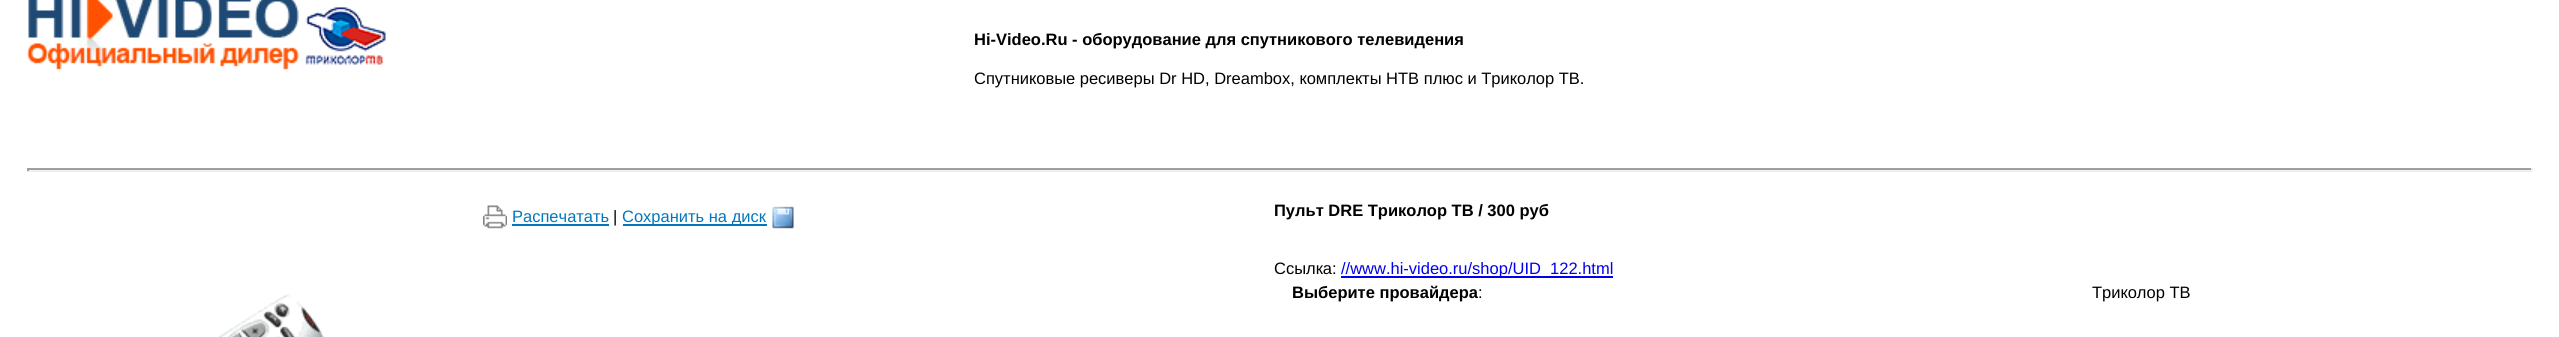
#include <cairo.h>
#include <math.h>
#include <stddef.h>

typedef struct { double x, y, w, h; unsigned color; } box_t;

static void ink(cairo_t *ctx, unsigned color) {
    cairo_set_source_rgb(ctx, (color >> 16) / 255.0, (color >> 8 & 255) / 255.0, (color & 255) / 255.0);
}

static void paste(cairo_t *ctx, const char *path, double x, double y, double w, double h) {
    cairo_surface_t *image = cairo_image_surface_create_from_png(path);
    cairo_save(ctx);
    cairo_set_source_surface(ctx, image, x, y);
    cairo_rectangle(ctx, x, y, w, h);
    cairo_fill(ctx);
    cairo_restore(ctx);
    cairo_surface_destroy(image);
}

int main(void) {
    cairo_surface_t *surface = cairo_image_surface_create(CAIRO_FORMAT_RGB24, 2559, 337);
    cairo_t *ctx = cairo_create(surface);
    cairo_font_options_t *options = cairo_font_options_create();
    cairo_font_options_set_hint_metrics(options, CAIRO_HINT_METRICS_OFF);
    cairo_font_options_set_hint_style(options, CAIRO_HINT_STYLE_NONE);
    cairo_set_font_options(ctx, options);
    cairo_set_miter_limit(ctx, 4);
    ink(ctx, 0xFFFFFF);
    cairo_paint(ctx);
    paste(ctx, "media/1.png", 27, 0, 359, 70);
    cairo_select_font_face(ctx, "Liberation Sans", CAIRO_FONT_SLANT_NORMAL, CAIRO_FONT_WEIGHT_BOLD);
    cairo_set_font_size(ctx, 16.5);
    ink(ctx, 0x000000);
    cairo_move_to(ctx, 974, 45);
    cairo_show_text(ctx, "Hi-Video.Ru - оборудование для спутникового телевидения");
    cairo_select_font_face(ctx, "Liberation Sans", CAIRO_FONT_SLANT_NORMAL, CAIRO_FONT_WEIGHT_NORMAL);
    cairo_move_to(ctx, 974, 84);
    cairo_show_text(ctx, "Спутниковые ресиверы Dr HD, Dreambox, комплекты НТВ плюс и Триколор ТВ.");
    {
        static const box_t items[] = {
            {27, 168, 2505, 2, 0x9F9F9F},
            {2531, 168, 2, 3, 0xEEEEEE},
            {27, 170, 2505, 2, 0xEEEEEE},
            {27, 168, 2, 3, 0x9F9F9F},
        };
        for (size_t i = 0; i < sizeof items / sizeof *items; i++) {
            ink(ctx, items[i].color);
            cairo_rectangle(ctx, items[i].x, items[i].y, items[i].w, items[i].h);
            cairo_fill(ctx);
        }
    }
    paste(ctx, "media/2.png", 483, 205, 24, 24);
    ink(ctx, 0x0078BD);
    cairo_move_to(ctx, 512, 222);
    cairo_show_text(ctx, "Распечатать");
    cairo_rectangle(ctx, 512, 224, 97, 2);
    cairo_fill(ctx);
    ink(ctx, 0x000000);
    cairo_move_to(ctx, 613, 222);
    cairo_show_text(ctx, "|");
    ink(ctx, 0x0078BD);
    cairo_rectangle(ctx, 623, 224, 144, 2);
    cairo_fill(ctx);
    cairo_move_to(ctx, 622, 222);
    cairo_show_text(ctx, "Сохранить на диск");
    paste(ctx, "media/3.png", 772, 206, 22, 23);
    paste(ctx, "media/4.png", 219, 294, 106, 43);
    cairo_select_font_face(ctx, "Liberation Sans", CAIRO_FONT_SLANT_NORMAL, CAIRO_FONT_WEIGHT_BOLD);
    ink(ctx, 0x000000);
    cairo_move_to(ctx, 1274, 216);
    cairo_show_text(ctx, "Пульт DRE Триколор ТВ / 300 руб");
    cairo_select_font_face(ctx, "Liberation Sans", CAIRO_FONT_SLANT_NORMAL, CAIRO_FONT_WEIGHT_NORMAL);
    cairo_move_to(ctx, 1274, 274);
    cairo_show_text(ctx, "Ссылка:");
    ink(ctx, 0x0000EE);
    cairo_rectangle(ctx, 1341, 276, 272, 2);
    cairo_fill(ctx);
    cairo_move_to(ctx, 1341, 274);
    cairo_show_text(ctx, "//www.hi-video.ru/shop/UID_122.html");
    cairo_select_font_face(ctx, "Liberation Sans", CAIRO_FONT_SLANT_NORMAL, CAIRO_FONT_WEIGHT_BOLD);
    ink(ctx, 0x000000);
    cairo_move_to(ctx, 1292, 298);
    cairo_show_text(ctx, "Выберите провайдера");
    cairo_select_font_face(ctx, "Liberation Sans", CAIRO_FONT_SLANT_NORMAL, CAIRO_FONT_WEIGHT_NORMAL);
    cairo_move_to(ctx, 1478, 298);
    cairo_show_text(ctx, ":");
    cairo_move_to(ctx, 2092, 298);
    cairo_show_text(ctx, "Триколор ТВ");
    cairo_surface_write_to_png(surface, "image.png");
    cairo_font_options_destroy(options);
    cairo_destroy(ctx);
    cairo_surface_destroy(surface);
    return 0;
}
